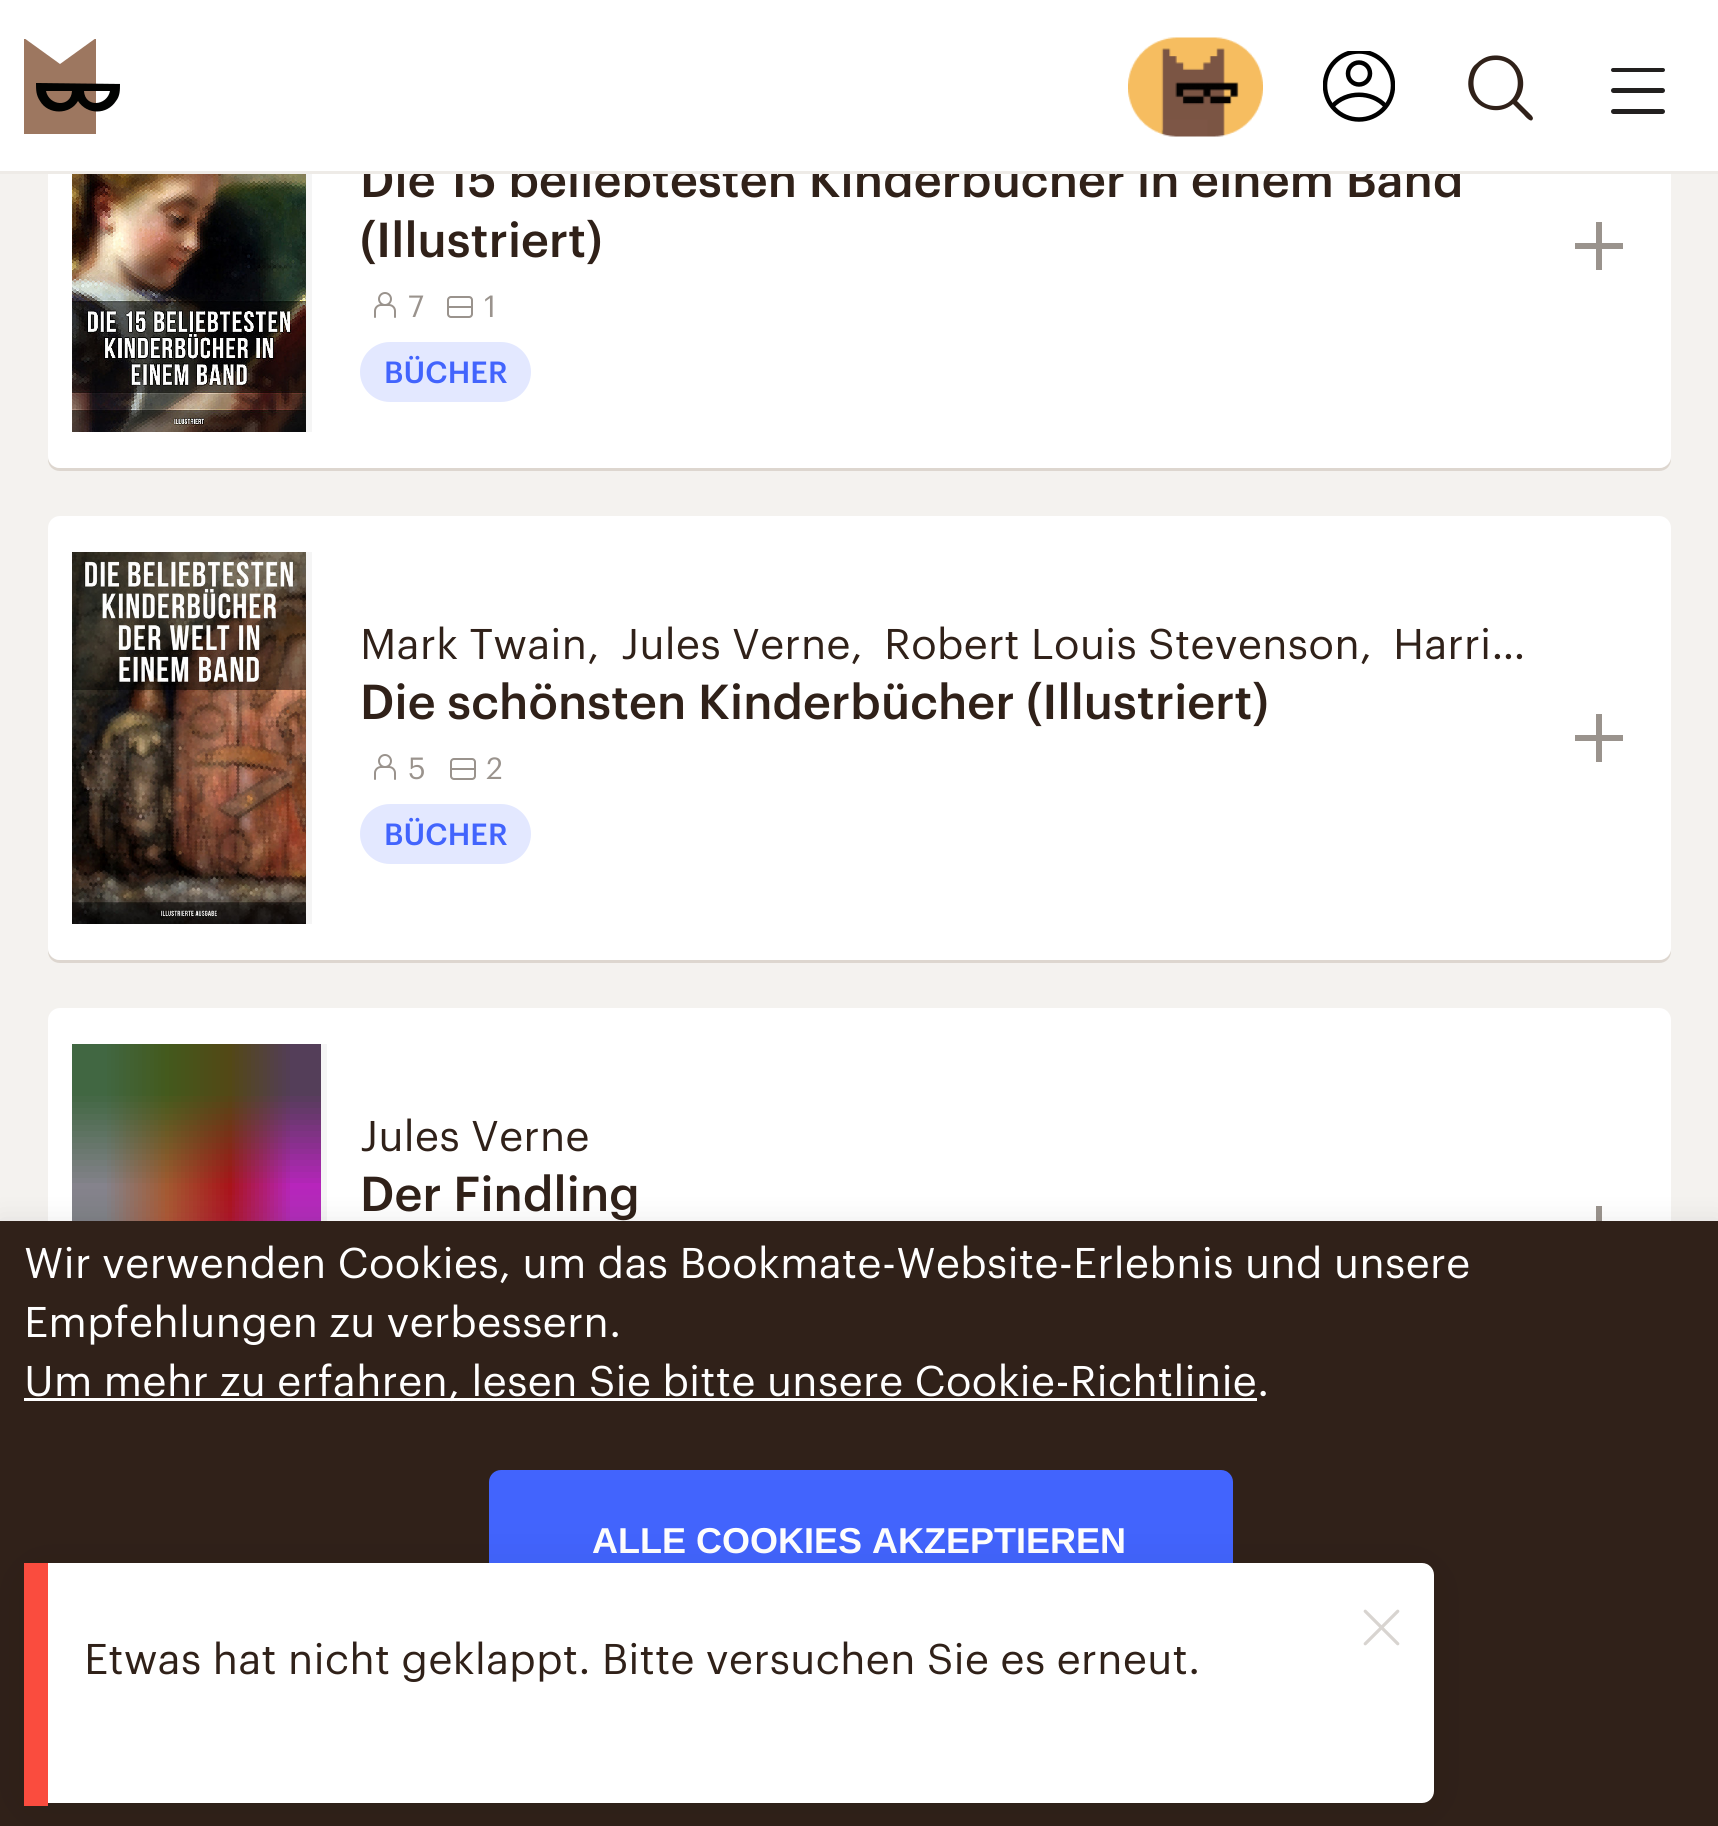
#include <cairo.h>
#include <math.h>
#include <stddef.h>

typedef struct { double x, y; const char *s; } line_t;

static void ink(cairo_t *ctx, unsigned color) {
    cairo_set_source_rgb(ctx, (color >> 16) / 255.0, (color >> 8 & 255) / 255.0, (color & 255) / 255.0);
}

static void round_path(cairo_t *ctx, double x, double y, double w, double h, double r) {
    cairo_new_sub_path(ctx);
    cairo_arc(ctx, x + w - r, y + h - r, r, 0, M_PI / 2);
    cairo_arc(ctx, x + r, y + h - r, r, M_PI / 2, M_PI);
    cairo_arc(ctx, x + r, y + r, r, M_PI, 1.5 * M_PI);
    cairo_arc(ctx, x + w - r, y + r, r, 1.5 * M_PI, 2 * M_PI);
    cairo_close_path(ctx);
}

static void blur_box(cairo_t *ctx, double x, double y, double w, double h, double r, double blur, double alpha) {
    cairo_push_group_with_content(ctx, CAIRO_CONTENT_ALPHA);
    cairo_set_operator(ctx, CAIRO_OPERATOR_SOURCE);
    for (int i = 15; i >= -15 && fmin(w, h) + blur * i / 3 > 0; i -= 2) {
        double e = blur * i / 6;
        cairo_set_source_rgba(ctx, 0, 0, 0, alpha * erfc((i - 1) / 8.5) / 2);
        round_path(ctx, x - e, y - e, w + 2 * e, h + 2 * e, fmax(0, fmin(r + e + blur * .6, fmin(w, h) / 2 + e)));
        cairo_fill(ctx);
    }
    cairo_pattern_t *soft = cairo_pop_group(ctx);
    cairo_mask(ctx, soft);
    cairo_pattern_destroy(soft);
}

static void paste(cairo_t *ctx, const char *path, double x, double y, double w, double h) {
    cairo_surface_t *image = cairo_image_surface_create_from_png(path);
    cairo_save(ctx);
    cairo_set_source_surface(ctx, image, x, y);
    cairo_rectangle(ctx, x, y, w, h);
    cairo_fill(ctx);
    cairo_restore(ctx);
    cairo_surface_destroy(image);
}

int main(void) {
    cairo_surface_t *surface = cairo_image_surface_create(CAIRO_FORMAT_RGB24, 1718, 1826);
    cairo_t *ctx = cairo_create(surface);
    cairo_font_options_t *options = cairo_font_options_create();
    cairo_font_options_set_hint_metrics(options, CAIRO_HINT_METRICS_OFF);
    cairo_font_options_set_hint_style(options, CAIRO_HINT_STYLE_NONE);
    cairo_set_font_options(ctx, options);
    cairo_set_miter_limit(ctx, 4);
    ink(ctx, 0xF4F2EF);
    cairo_paint(ctx);
    ink(ctx, 0xDDD6CF);
    cairo_new_path(ctx);
    cairo_move_to(ctx, 48, 456);
    cairo_line_to(ctx, 48, 459);
    cairo_curve_to(ctx, 48, 466, 53, 471, 60, 471);
    cairo_line_to(ctx, 1659, 471);
    cairo_curve_to(ctx, 1666, 471, 1671, 466, 1671, 459);
    cairo_line_to(ctx, 1671, 456);
    cairo_curve_to(ctx, 1671, 463, 1666, 468, 1659, 468);
    cairo_line_to(ctx, 60, 468);
    cairo_curve_to(ctx, 53, 468, 48, 463, 48, 456);
    cairo_close_path(ctx);
    cairo_fill(ctx);
    ink(ctx, 0xFFFFFF);
    round_path(ctx, 48, 24, 1623, 444, 12);
    cairo_fill(ctx);
    paste(ctx, "media/2.png", 72, 174, 234, 258);
    cairo_save(ctx);
    cairo_rectangle(ctx, 72, 60, 264, 372);
    cairo_clip(ctx);
    cairo_rectangle(ctx, 69, 57, 240, 378);
    ink(ctx, 0xF5F5F5);
    cairo_set_line_width(ctx, 6);
    cairo_stroke(ctx);
    cairo_restore(ctx);
    cairo_select_font_face(ctx, "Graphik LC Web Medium", CAIRO_FONT_SLANT_NORMAL, CAIRO_FONT_WEIGHT_NORMAL);
    cairo_set_font_size(ctx, 48);
    ink(ctx, 0x302119);
    cairo_move_to(ctx, 360, 197);
    cairo_show_text(ctx, "Die 15 beliebtesten Kinderbücher in einem Band");
    ink(ctx, 0xFFFFFF);
    cairo_rectangle(ctx, 0, 0, 1718, 171);
    cairo_fill(ctx);
    ink(ctx, 0xEEEBE7);
    cairo_rectangle(ctx, 0, 171, 1718, 3);
    cairo_fill(ctx);
    cairo_save(ctx);
    cairo_rectangle(ctx, 24, 39, 96, 96);
    cairo_clip(ctx);
    ink(ctx, 0x9D7760);
    cairo_new_path(ctx);
    cairo_move_to(ctx, 96, 38);
    cairo_line_to(ctx, 60, 64);
    cairo_line_to(ctx, 24, 38);
    cairo_line_to(ctx, 24, 134);
    cairo_line_to(ctx, 96, 134);
    cairo_close_path(ctx);
    cairo_fill(ctx);
    cairo_restore(ctx);
    ink(ctx, 0x020302);
    cairo_new_path(ctx);
    cairo_move_to(ctx, 84, 91);
    cairo_line_to(ctx, 110, 91);
    cairo_curve_to(ctx, 107, 106, 85, 108, 84, 91);
    cairo_close_path(ctx);
    cairo_move_to(ctx, 46, 91);
    cairo_line_to(ctx, 72, 91);
    cairo_curve_to(ctx, 71, 108, 49, 106, 46, 91);
    cairo_close_path(ctx);
    cairo_move_to(ctx, 36, 83);
    cairo_curve_to(ctx, 36, 90, 36, 95, 40, 101);
    cairo_curve_to(ctx, 48, 115, 70, 115, 78, 101);
    cairo_curve_to(ctx, 87, 115, 107, 115, 116, 101);
    cairo_curve_to(ctx, 120, 96, 120, 90, 120, 84);
    cairo_close_path(ctx);
    cairo_fill(ctx);
    paste(ctx, "media/1.png", 1128, 37, 135, 100);
    cairo_save(ctx);
    cairo_rectangle(ctx, 1323, 51, 72, 72);
    cairo_clip(ctx);
    cairo_arc(ctx, 1359, 85.5, 34, 0, 2 * M_PI);
    ink(ctx, 0x000000);
    cairo_set_line_width(ctx, 4.5);
    cairo_stroke(ctx);
    cairo_restore(ctx);
    cairo_arc(ctx, 1359, 73.5, 11, 0, 2 * M_PI);
    ink(ctx, 0x000000);
    cairo_set_line_width(ctx, 4.5);
    cairo_stroke(ctx);
    cairo_new_path(ctx);
    cairo_move_to(ctx, 1332.5, 106);
    cairo_curve_to(ctx, 1346.5, 91, 1371.5, 91, 1385.5, 106);
    cairo_stroke(ctx);
    ink(ctx, 0x302119);
    cairo_new_path(ctx);
    cairo_move_to(ctx, 1532, 116);
    cairo_line_to(ctx, 1517, 101);
    cairo_curve_to(ctx, 1533, 81, 1516, 51, 1490, 56);
    cairo_curve_to(ctx, 1485, 57, 1480, 60, 1476, 64);
    cairo_curve_to(ctx, 1472, 67, 1470, 72, 1469, 77);
    cairo_curve_to(ctx, 1463, 103, 1494, 120, 1513, 104);
    cairo_line_to(ctx, 1524, 115);
    cairo_curve_to(ctx, 1524, 115, 1532, 125, 1533, 118);
    cairo_close_path(ctx);
    cairo_move_to(ctx, 1496, 106);
    cairo_curve_to(ctx, 1466, 106, 1466, 60, 1496, 60);
    cairo_curve_to(ctx, 1525, 60, 1525, 106, 1496, 106);
    cairo_close_path(ctx);
    cairo_fill(ctx);
    ink(ctx, 0x22201F);
    round_path(ctx, 1611, 68, 54, 4, 2);
    cairo_fill(ctx);
    round_path(ctx, 1611, 88, 54, 5, 2.5);
    cairo_fill(ctx);
    round_path(ctx, 1611, 109, 54, 5, 2.5);
    cairo_fill(ctx);
    ink(ctx, 0x302119);
    cairo_move_to(ctx, 360, 257);
    cairo_show_text(ctx, "(Illustriert)");
    paste(ctx, "media/3.png", 374, 292, 22, 26);
    cairo_select_font_face(ctx, "Graphik LC Web", CAIRO_FONT_SLANT_NORMAL, CAIRO_FONT_WEIGHT_NORMAL);
    cairo_set_font_size(ctx, 30);
    ink(ctx, 0x9A938D);
    cairo_move_to(ctx, 408, 317);
    cairo_show_text(ctx, "7");
    paste(ctx, "media/4.png", 447, 296, 26, 22);
    cairo_move_to(ctx, 484, 317);
    cairo_show_text(ctx, "1");
    ink(ctx, 0xE3E8FF);
    round_path(ctx, 360, 342, 171, 60, 30);
    cairo_fill(ctx);
    cairo_select_font_face(ctx, "Graphik LC Web Medium", CAIRO_FONT_SLANT_NORMAL, CAIRO_FONT_WEIGHT_NORMAL);
    ink(ctx, 0x4264FD);
    cairo_move_to(ctx, 384, 383);
    cairo_show_text(ctx, "BÜCHER");
    ink(ctx, 0x9A938D);
    cairo_rectangle(ctx, 1575, 243, 48, 6);
    cairo_fill(ctx);
    cairo_rectangle(ctx, 1596, 222, 6, 48);
    cairo_fill(ctx);
    ink(ctx, 0xDDD6CF);
    cairo_new_path(ctx);
    cairo_move_to(ctx, 48, 948);
    cairo_line_to(ctx, 48, 951);
    cairo_curve_to(ctx, 48, 958, 53, 963, 60, 963);
    cairo_line_to(ctx, 1659, 963);
    cairo_curve_to(ctx, 1666, 963, 1671, 958, 1671, 951);
    cairo_line_to(ctx, 1671, 948);
    cairo_curve_to(ctx, 1671, 955, 1666, 960, 1659, 960);
    cairo_line_to(ctx, 60, 960);
    cairo_curve_to(ctx, 53, 960, 48, 955, 48, 948);
    cairo_close_path(ctx);
    cairo_fill(ctx);
    ink(ctx, 0xFFFFFF);
    round_path(ctx, 48, 516, 1623, 444, 12);
    cairo_fill(ctx);
    paste(ctx, "media/5.png", 72, 552, 234, 372);
    cairo_save(ctx);
    cairo_rectangle(ctx, 72, 552, 264, 372);
    cairo_clip(ctx);
    cairo_rectangle(ctx, 69, 549, 240, 378);
    ink(ctx, 0xF5F5F5);
    cairo_set_line_width(ctx, 6);
    cairo_stroke(ctx);
    cairo_restore(ctx);
    cairo_select_font_face(ctx, "Graphik LC Web", CAIRO_FONT_SLANT_NORMAL, CAIRO_FONT_WEIGHT_NORMAL);
    cairo_set_font_size(ctx, 42);
    ink(ctx, 0x302119);
    {
        static const line_t items[] = {
            {360, 659, "Mark Twain,"},
            {621, 659, "Jules Verne,"},
            {884, 659, "Robert Louis Stevenson,"},
            {1393, 659, "Harri…"},
        };
        for (size_t i = 0; i < sizeof items / sizeof *items; i++) {
            cairo_move_to(ctx, items[i].x, items[i].y);
            cairo_show_text(ctx, items[i].s);
        }
    }
    cairo_select_font_face(ctx, "Graphik LC Web Medium", CAIRO_FONT_SLANT_NORMAL, CAIRO_FONT_WEIGHT_NORMAL);
    cairo_set_font_size(ctx, 48);
    cairo_move_to(ctx, 360, 719);
    cairo_show_text(ctx, "Die schönsten Kinderbücher (Illustriert)");
    paste(ctx, "media/3.png", 374, 754, 22, 26);
    cairo_select_font_face(ctx, "Graphik LC Web", CAIRO_FONT_SLANT_NORMAL, CAIRO_FONT_WEIGHT_NORMAL);
    cairo_set_font_size(ctx, 30);
    ink(ctx, 0x9A938D);
    cairo_move_to(ctx, 408, 779);
    cairo_show_text(ctx, "5");
    paste(ctx, "media/4.png", 450, 758, 26, 22);
    cairo_move_to(ctx, 486, 779);
    cairo_show_text(ctx, "2");
    ink(ctx, 0xE3E8FF);
    round_path(ctx, 360, 804, 171, 60, 30);
    cairo_fill(ctx);
    cairo_select_font_face(ctx, "Graphik LC Web Medium", CAIRO_FONT_SLANT_NORMAL, CAIRO_FONT_WEIGHT_NORMAL);
    ink(ctx, 0x4264FD);
    cairo_move_to(ctx, 384, 845);
    cairo_show_text(ctx, "BÜCHER");
    ink(ctx, 0x9A938D);
    cairo_rectangle(ctx, 1575, 735, 48, 6);
    cairo_fill(ctx);
    cairo_rectangle(ctx, 1596, 714, 6, 48);
    cairo_fill(ctx);
    ink(ctx, 0xFFFFFF);
    round_path(ctx, 48, 1008, 1623, 444, 12);
    cairo_fill(ctx);
    paste(ctx, "media/6.png", 72, 1044, 249, 177);
    cairo_save(ctx);
    cairo_rectangle(ctx, 72, 1044, 264, 372);
    cairo_clip(ctx);
    cairo_rectangle(ctx, 69, 1041, 255, 378);
    ink(ctx, 0xF5F5F5);
    cairo_set_line_width(ctx, 6);
    cairo_stroke(ctx);
    cairo_restore(ctx);
    cairo_select_font_face(ctx, "Graphik LC Web", CAIRO_FONT_SLANT_NORMAL, CAIRO_FONT_WEIGHT_NORMAL);
    cairo_set_font_size(ctx, 42);
    ink(ctx, 0x302119);
    cairo_move_to(ctx, 360, 1151);
    cairo_show_text(ctx, "Jules Verne");
    cairo_select_font_face(ctx, "Graphik LC Web Medium", CAIRO_FONT_SLANT_NORMAL, CAIRO_FONT_WEIGHT_NORMAL);
    cairo_set_font_size(ctx, 48);
    cairo_move_to(ctx, 360, 1211);
    cairo_show_text(ctx, "Der Findling");
    ink(ctx, 0x9A938D);
    cairo_rectangle(ctx, 1596, 1206, 6, 15);
    cairo_fill(ctx);
    ink(ctx, 0x000000);
    blur_box(ctx, 0, 1224, 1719, 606, 0, 15, 0.1);
    ink(ctx, 0x302119);
    cairo_rectangle(ctx, 0, 1221, 1718, 605);
    cairo_fill(ctx);
    cairo_select_font_face(ctx, "Graphik LC Web", CAIRO_FONT_SLANT_NORMAL, CAIRO_FONT_WEIGHT_NORMAL);
    cairo_set_font_size(ctx, 42);
    ink(ctx, 0xFFFFFF);
    cairo_move_to(ctx, 24, 1278);
    cairo_show_text(ctx, "Wir verwenden Cookies, um das Bookmate-Website-Erlebnis und unsere");
    cairo_move_to(ctx, 24, 1337);
    cairo_show_text(ctx, "Empfehlungen zu verbessern.");
    cairo_rectangle(ctx, 24, 1398, 1233, 3);
    cairo_fill(ctx);
    cairo_move_to(ctx, 24, 1396);
    cairo_show_text(ctx, "Um mehr zu erfahren, lesen Sie bitte unsere Cookie-Richtlinie.");
    ink(ctx, 0x4264FD);
    round_path(ctx, 489, 1470, 744, 144, 12);
    cairo_fill(ctx);
    cairo_select_font_face(ctx, "Liberation Sans", CAIRO_FONT_SLANT_NORMAL, CAIRO_FONT_WEIGHT_BOLD);
    cairo_set_font_size(ctx, 36);
    ink(ctx, 0xFFFFFF);
    cairo_move_to(ctx, 592, 1553);
    cairo_show_text(ctx, "ALLE COOKIES AKZEPTIEREN");
    ink(ctx, 0x000000);
    blur_box(ctx, 24, 1569, 1410, 240, 12, 30, 0.07);
    ink(ctx, 0xFFFFFF);
    round_path(ctx, 24, 1563, 1410, 240, 12);
    cairo_fill(ctx);
    ink(ctx, 0xFA4C3E);
    cairo_rectangle(ctx, 24, 1563, 24, 243);
    cairo_fill(ctx);
    paste(ctx, "media/7.png", 1363, 1609, 37, 37);
    cairo_select_font_face(ctx, "Graphik LC Web", CAIRO_FONT_SLANT_NORMAL, CAIRO_FONT_WEIGHT_NORMAL);
    cairo_set_font_size(ctx, 42);
    ink(ctx, 0x302119);
    cairo_move_to(ctx, 84, 1674);
    cairo_show_text(ctx, "Etwas hat nicht geklappt. Bitte versuchen Sie es erneut.");
    cairo_surface_write_to_png(surface, "image.png");
    cairo_font_options_destroy(options);
    cairo_destroy(ctx);
    cairo_surface_destroy(surface);
    return 0;
}
